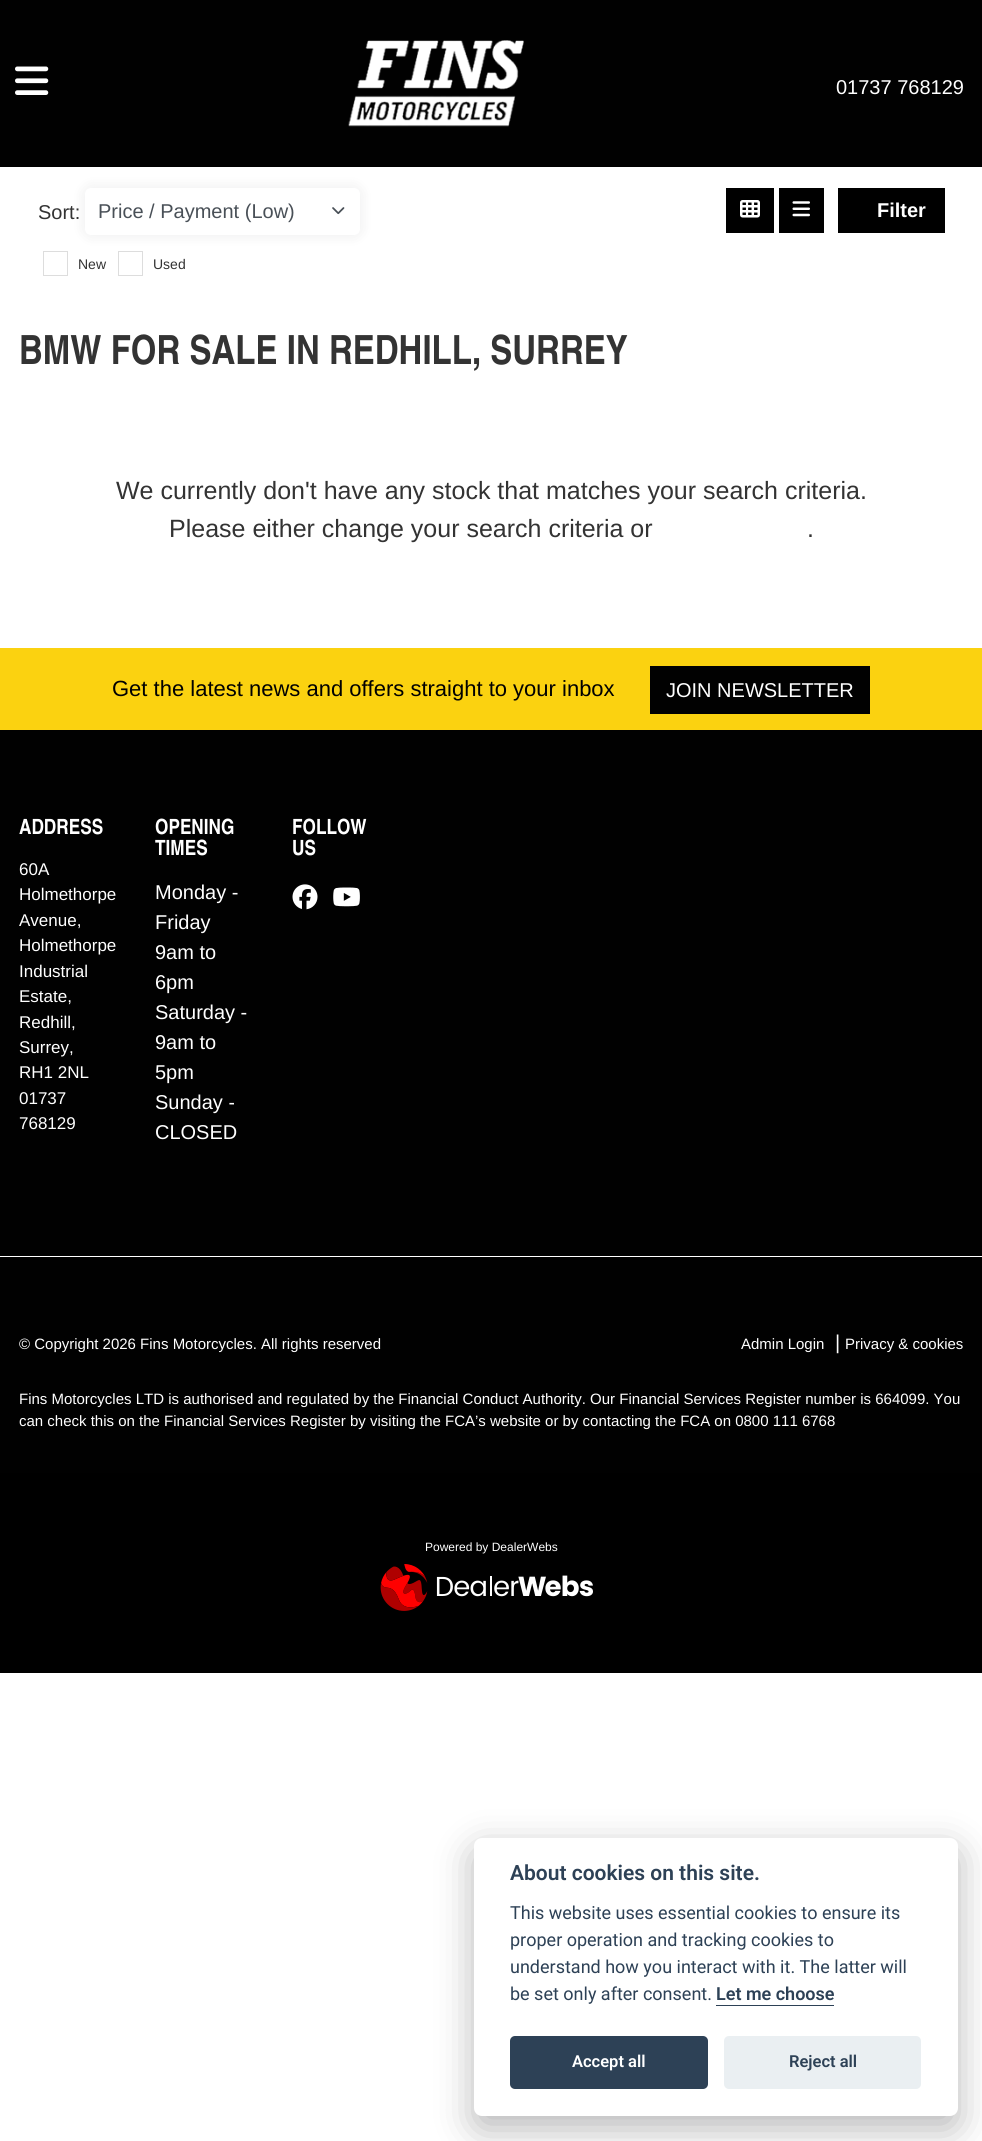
#include <cairo.h>
#include <math.h>
#include <stddef.h>

typedef struct { double x, y; const char *s; } line_t;

static void ink(cairo_t *ctx, unsigned color) {
    cairo_set_source_rgb(ctx, (color >> 16) / 255.0, (color >> 8 & 255) / 255.0, (color & 255) / 255.0);
}

static void round_path(cairo_t *ctx, double x, double y, double w, double h, double r) {
    cairo_new_sub_path(ctx);
    cairo_arc(ctx, x + w - r, y + h - r, r, 0, M_PI / 2);
    cairo_arc(ctx, x + r, y + h - r, r, M_PI / 2, M_PI);
    cairo_arc(ctx, x + r, y + r, r, M_PI, 1.5 * M_PI);
    cairo_arc(ctx, x + w - r, y + r, r, 1.5 * M_PI, 2 * M_PI);
    cairo_close_path(ctx);
}

static void blur_box(cairo_t *ctx, double x, double y, double w, double h, double r, double blur, double alpha) {
    cairo_push_group_with_content(ctx, CAIRO_CONTENT_ALPHA);
    cairo_set_operator(ctx, CAIRO_OPERATOR_SOURCE);
    for (int i = 15; i >= -15 && fmin(w, h) + blur * i / 3 > 0; i -= 2) {
        double e = blur * i / 6;
        cairo_set_source_rgba(ctx, 0, 0, 0, alpha * erfc((i - 1) / 8.5) / 2);
        round_path(ctx, x - e, y - e, w + 2 * e, h + 2 * e, fmax(0, fmin(r + e + blur * .6, fmin(w, h) / 2 + e)));
        cairo_fill(ctx);
    }
    cairo_pattern_t *soft = cairo_pop_group(ctx);
    cairo_mask(ctx, soft);
    cairo_pattern_destroy(soft);
}

static void paste(cairo_t *ctx, const char *path, double x, double y, double w, double h) {
    cairo_surface_t *image = cairo_image_surface_create_from_png(path);
    cairo_save(ctx);
    cairo_set_source_surface(ctx, image, x, y);
    cairo_rectangle(ctx, x, y, w, h);
    cairo_fill(ctx);
    cairo_restore(ctx);
    cairo_surface_destroy(image);
}

int main(void) {
    cairo_surface_t *surface = cairo_image_surface_create(CAIRO_FORMAT_RGB24, 982, 2141);
    cairo_t *ctx = cairo_create(surface);
    cairo_font_options_t *options = cairo_font_options_create();
    cairo_font_options_set_hint_metrics(options, CAIRO_HINT_METRICS_OFF);
    cairo_font_options_set_hint_style(options, CAIRO_HINT_STYLE_NONE);
    cairo_set_font_options(ctx, options);
    cairo_set_miter_limit(ctx, 4);
    ink(ctx, 0xFFFFFF);
    cairo_paint(ctx);
    ink(ctx, 0x000000);
    cairo_rectangle(ctx, 0, 166, 982, 1);
    cairo_fill(ctx);
    ink(ctx, 0x010101);
    cairo_rectangle(ctx, 0, 0, 982, 166);
    cairo_fill(ctx);
    paste(ctx, "media/1.png", 15, 66, 34, 29);
    paste(ctx, "media/2.png", 348, 40, 176, 87);
    cairo_select_font_face(ctx, "Liberation Sans", CAIRO_FONT_SLANT_NORMAL, CAIRO_FONT_WEIGHT_NORMAL);
    cairo_set_font_size(ctx, 20);
    ink(ctx, 0xFFFFFF);
    cairo_move_to(ctx, 836, 94);
    cairo_show_text(ctx, "01737 768129");
    ink(ctx, 0x333333);
    cairo_move_to(ctx, 38, 219);
    cairo_show_text(ctx, "Sort:");
    ink(ctx, 0x0E0F10);
    blur_box(ctx, 85, 188, 275, 47, 6, 7.5, 0.08);
    ink(ctx, 0xFFFFFF);
    round_path(ctx, 85, 188, 275, 47, 6);
    cairo_fill(ctx);
    ink(ctx, 0x495057);
    cairo_move_to(ctx, 98, 218);
    cairo_show_text(ctx, "Price / Payment (Low)");
    paste(ctx, "media/3.png", 332, 207, 13, 8);
    ink(ctx, 0x000000);
    cairo_rectangle(ctx, 726, 188, 48, 45);
    cairo_fill(ctx);
    paste(ctx, "media/4.png", 740, 200, 20, 18);
    cairo_rectangle(ctx, 779, 188, 45, 45);
    cairo_fill(ctx);
    paste(ctx, "media/5.png", 792, 201, 18, 16);
    cairo_rectangle(ctx, 838, 188, 107, 45);
    cairo_fill(ctx);
    cairo_select_font_face(ctx, "Liberation Sans", CAIRO_FONT_SLANT_NORMAL, CAIRO_FONT_WEIGHT_BOLD);
    ink(ctx, 0xFFFFFF);
    cairo_move_to(ctx, 877, 217);
    cairo_show_text(ctx, "Filter");
    cairo_rectangle(ctx, 43.5, 251.5, 24, 24);
    ink(ctx, 0xDDDDDD);
    cairo_set_line_width(ctx, 1);
    cairo_stroke(ctx);
    cairo_select_font_face(ctx, "Liberation Sans", CAIRO_FONT_SLANT_NORMAL, CAIRO_FONT_WEIGHT_NORMAL);
    cairo_set_font_size(ctx, 14);
    ink(ctx, 0x333333);
    cairo_move_to(ctx, 78, 269);
    cairo_show_text(ctx, "New");
    cairo_rectangle(ctx, 118.5, 251.5, 24, 24);
    ink(ctx, 0xDDDDDD);
    cairo_stroke(ctx);
    ink(ctx, 0x333333);
    cairo_move_to(ctx, 153, 269);
    cairo_show_text(ctx, "Used");
    cairo_select_font_face(ctx, "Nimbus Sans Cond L", CAIRO_FONT_SLANT_NORMAL, CAIRO_FONT_WEIGHT_BOLD);
    cairo_set_font_size(ctx, 40.25);
    cairo_move_to(ctx, 19, 364);
    cairo_show_text(ctx, "BMW FOR SALE IN REDHILL, SURREY");
    cairo_select_font_face(ctx, "Liberation Sans", CAIRO_FONT_SLANT_NORMAL, CAIRO_FONT_WEIGHT_NORMAL);
    cairo_set_font_size(ctx, 25);
    {
        static const line_t items[] = {
            {116, 499, "We currently don't have any stock that matches your search criteria."},
            {169, 537, "Please either change your search criteria or"},
            {807, 537, "."},
        };
        for (size_t i = 0; i < sizeof items / sizeof *items; i++) {
            cairo_move_to(ctx, items[i].x, items[i].y);
            cairo_show_text(ctx, items[i].s);
        }
    }
    ink(ctx, 0x010101);
    cairo_rectangle(ctx, 0, 730, 982, 526);
    cairo_fill(ctx);
    ink(ctx, 0xFBD210);
    cairo_rectangle(ctx, 0, 648, 982, 82);
    cairo_fill(ctx);
    cairo_set_font_size(ctx, 22);
    ink(ctx, 0x010101);
    cairo_move_to(ctx, 112, 696);
    cairo_show_text(ctx, "Get the latest news and offers straight to your inbox");
    cairo_rectangle(ctx, 650, 666, 220, 48);
    cairo_fill(ctx);
    cairo_set_font_size(ctx, 20);
    ink(ctx, 0xFFFFFF);
    cairo_move_to(ctx, 666, 697);
    cairo_show_text(ctx, "JOIN NEWSLETTER");
    cairo_select_font_face(ctx, "Nimbus Sans Cond L", CAIRO_FONT_SLANT_NORMAL, CAIRO_FONT_WEIGHT_BOLD);
    cairo_set_font_size(ctx, 21);
    cairo_move_to(ctx, 19, 834);
    cairo_show_text(ctx, "ADDRESS");
    cairo_select_font_face(ctx, "Liberation Sans", CAIRO_FONT_SLANT_NORMAL, CAIRO_FONT_WEIGHT_NORMAL);
    cairo_set_font_size(ctx, 17);
    {
        static const line_t items[] = {
            {19, 875, "60A"},
            {19, 900, "Holmethorpe"},
            {19, 926, "Avenue,"},
            {19, 951, "Holmethorpe"},
            {19, 977, "Industrial"},
            {19, 1002, "Estate,"},
            {19, 1028, "Redhill,"},
            {19, 1053, "Surrey,"},
            {19, 1078, "RH1 2NL"},
            {19, 1104, "01737"},
            {19, 1129, "768129"},
        };
        for (size_t i = 0; i < sizeof items / sizeof *items; i++) {
            cairo_move_to(ctx, items[i].x, items[i].y);
            cairo_show_text(ctx, items[i].s);
        }
    }
    cairo_select_font_face(ctx, "Nimbus Sans Cond L", CAIRO_FONT_SLANT_NORMAL, CAIRO_FONT_WEIGHT_BOLD);
    cairo_set_font_size(ctx, 21);
    cairo_move_to(ctx, 155, 834);
    cairo_show_text(ctx, "OPENING");
    cairo_move_to(ctx, 155, 855);
    cairo_show_text(ctx, "TIMES");
    cairo_select_font_face(ctx, "Liberation Sans", CAIRO_FONT_SLANT_NORMAL, CAIRO_FONT_WEIGHT_NORMAL);
    cairo_set_font_size(ctx, 20);
    {
        static const line_t items[] = {
            {155, 899, "Monday -"},
            {155, 929, "Friday"},
            {155, 959, "9am to"},
            {155, 989, "6pm"},
            {155, 1019, "Saturday -"},
            {155, 1049, "9am to"},
            {155, 1079, "5pm"},
            {155, 1109, "Sunday -"},
            {155, 1139, "CLOSED"},
        };
        for (size_t i = 0; i < sizeof items / sizeof *items; i++) {
            cairo_move_to(ctx, items[i].x, items[i].y);
            cairo_show_text(ctx, items[i].s);
        }
    }
    cairo_select_font_face(ctx, "Nimbus Sans Cond L", CAIRO_FONT_SLANT_NORMAL, CAIRO_FONT_WEIGHT_BOLD);
    cairo_set_font_size(ctx, 21);
    cairo_move_to(ctx, 292, 834);
    cairo_show_text(ctx, "FOLLOW");
    cairo_move_to(ctx, 292, 855);
    cairo_show_text(ctx, "US");
    paste(ctx, "media/6.png", 292, 884, 26, 26);
    paste(ctx, "media/7.png", 333, 887, 27, 20);
    ink(ctx, 0x010101);
    cairo_rectangle(ctx, 0, 1257, 982, 216);
    cairo_fill(ctx);
    cairo_select_font_face(ctx, "Liberation Sans", CAIRO_FONT_SLANT_NORMAL, CAIRO_FONT_WEIGHT_NORMAL);
    cairo_set_font_size(ctx, 15);
    ink(ctx, 0xFFFFFF);
    cairo_move_to(ctx, 19, 1349);
    cairo_show_text(ctx, "© Copyright 2026 Fins Motorcycles. All rights reserved");
    cairo_move_to(ctx, 741, 1349);
    cairo_show_text(ctx, "Admin Login");
    cairo_set_font_size(ctx, 20);
    cairo_move_to(ctx, 835, 1349);
    cairo_show_text(ctx, "|");
    cairo_set_font_size(ctx, 15);
    {
        static const line_t items[] = {
            {845, 1349, "Privacy & cookies"},
            {19, 1404, "Fins Motorcycles LTD is authorised and regulated by the Financial Conduct Authority. Our Financial Services Register number is 664099. You"},
            {19, 1426, "can check this on the Financial Services Register by visiting the FCA’s website or by contacting the FCA on 0800 111 6768"},
        };
        for (size_t i = 0; i < sizeof items / sizeof *items; i++) {
            cairo_move_to(ctx, items[i].x, items[i].y);
            cairo_show_text(ctx, items[i].s);
        }
    }
    ink(ctx, 0x000000);
    cairo_rectangle(ctx, 0, 1473, 982, 200);
    cairo_fill(ctx);
    cairo_set_font_size(ctx, 12);
    ink(ctx, 0xFFFFFF);
    cairo_move_to(ctx, 425, 1551);
    cairo_show_text(ctx, "Powered by DealerWebs");
    paste(ctx, "media/8.png", 380, 1564, 213, 47);
    ink(ctx, 0x020203);
    blur_box(ctx, 474, 1850, 484, 279, 8, 19, 0.28);
    ink(ctx, 0xFFFFFF);
    round_path(ctx, 474, 1838, 484, 278, 8);
    cairo_fill(ctx);
    cairo_select_font_face(ctx, "Roboto SemiBold", CAIRO_FONT_SLANT_NORMAL, CAIRO_FONT_WEIGHT_NORMAL);
    cairo_set_font_size(ctx, 21);
    ink(ctx, 0x2D4156);
    cairo_move_to(ctx, 510, 1880);
    cairo_show_text(ctx, "About cookies on this site.");
    cairo_select_font_face(ctx, "Roboto", CAIRO_FONT_SLANT_NORMAL, CAIRO_FONT_WEIGHT_NORMAL);
    cairo_set_font_size(ctx, 18);
    {
        static const line_t items[] = {
            {510, 1919, "This website uses essential cookies to ensure its"},
            {510, 1946, "proper operation and tracking cookies to"},
            {510, 1973, "understand how you interact with it. The latter will"},
            {510, 2000, "be set only after consent."},
        };
        for (size_t i = 0; i < sizeof items / sizeof *items; i++) {
            cairo_move_to(ctx, items[i].x, items[i].y);
            cairo_show_text(ctx, items[i].s);
        }
    }
    cairo_select_font_face(ctx, "Roboto SemiBold", CAIRO_FONT_SLANT_NORMAL, CAIRO_FONT_WEIGHT_NORMAL);
    cairo_move_to(ctx, 716, 2000);
    cairo_show_text(ctx, "Let me choose");
    cairo_rectangle(ctx, 716, 2005, 118, 1);
    cairo_fill(ctx);
    round_path(ctx, 510, 2036, 198, 53, 5);
    cairo_fill(ctx);
    cairo_set_font_size(ctx, 16.5);
    ink(ctx, 0xFFFFFF);
    cairo_move_to(ctx, 572, 2067);
    cairo_show_text(ctx, "Accept all");
    ink(ctx, 0xEAEFF2);
    round_path(ctx, 724, 2036, 197, 53, 5);
    cairo_fill(ctx);
    ink(ctx, 0x2D4156);
    cairo_move_to(ctx, 789, 2067);
    cairo_show_text(ctx, "Reject all");
    cairo_surface_write_to_png(surface, "image.png");
    cairo_font_options_destroy(options);
    cairo_destroy(ctx);
    cairo_surface_destroy(surface);
    return 0;
}
